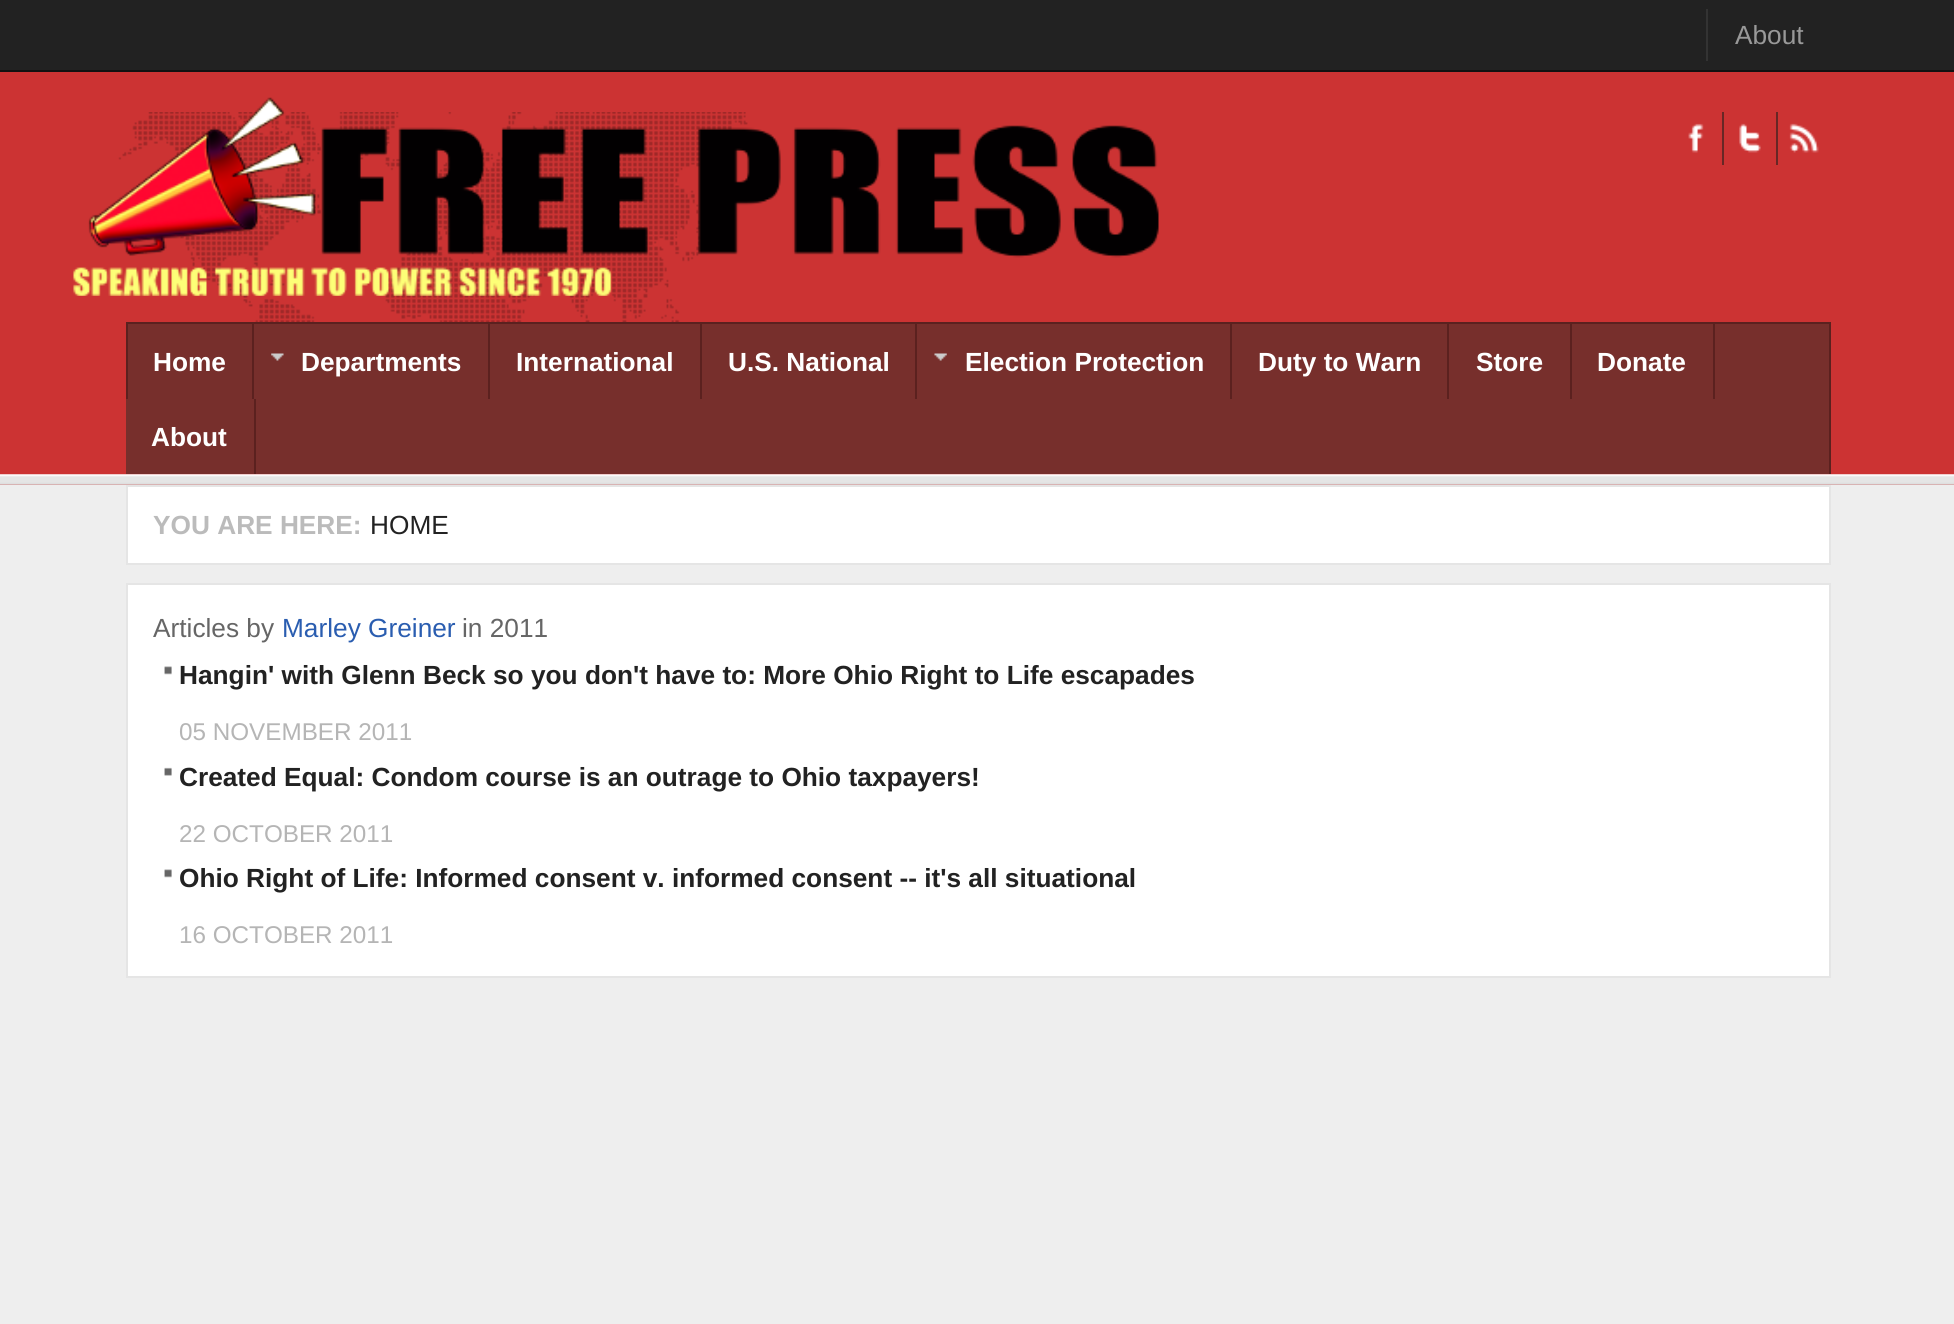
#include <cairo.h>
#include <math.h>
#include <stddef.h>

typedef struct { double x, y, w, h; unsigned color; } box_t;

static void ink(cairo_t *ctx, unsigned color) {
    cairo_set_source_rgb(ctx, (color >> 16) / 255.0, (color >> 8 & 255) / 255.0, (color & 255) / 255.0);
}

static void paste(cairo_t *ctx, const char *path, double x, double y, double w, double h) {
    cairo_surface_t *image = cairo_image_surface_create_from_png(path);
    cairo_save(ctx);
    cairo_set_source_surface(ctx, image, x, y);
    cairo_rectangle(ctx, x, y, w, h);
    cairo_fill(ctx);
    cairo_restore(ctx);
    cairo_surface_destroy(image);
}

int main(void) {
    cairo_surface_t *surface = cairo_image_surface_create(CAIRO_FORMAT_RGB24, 1954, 1324);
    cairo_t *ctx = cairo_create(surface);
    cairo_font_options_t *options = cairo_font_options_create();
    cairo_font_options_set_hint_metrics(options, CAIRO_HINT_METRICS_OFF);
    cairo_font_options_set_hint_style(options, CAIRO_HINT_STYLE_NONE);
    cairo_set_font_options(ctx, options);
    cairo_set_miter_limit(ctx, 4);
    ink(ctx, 0xEEEEEE);
    cairo_paint(ctx);
    {
        static const box_t items[] = {
            {0, 0, 1954, 70, 0x222222},
            {0, 70, 1954, 2, 0x111111},
            {1706, 9, 2, 52, 0x333333},
        };
        for (size_t i = 0; i < sizeof items / sizeof *items; i++) {
            ink(ctx, items[i].color);
            cairo_rectangle(ctx, items[i].x, items[i].y, items[i].w, items[i].h);
            cairo_fill(ctx);
        }
    }
    cairo_select_font_face(ctx, "Liberation Sans", CAIRO_FONT_SLANT_NORMAL, CAIRO_FONT_WEIGHT_NORMAL);
    cairo_set_font_size(ctx, 26.25);
    ink(ctx, 0x999999);
    cairo_move_to(ctx, 1735, 44);
    cairo_show_text(ctx, "About");
    ink(ctx, 0xCC3333);
    cairo_rectangle(ctx, 0, 72, 1954, 413);
    cairo_fill(ctx);
    paste(ctx, "media/1.png", 118, 112, 630, 210);
    paste(ctx, "media/2.png", 73, 97, 1086, 199);
    paste(ctx, "media/3.png", 1688, 123, 16, 30);
    paste(ctx, "media/4.png", 1739, 123, 22, 30);
    ink(ctx, 0x682725);
    cairo_rectangle(ctx, 1722, 112, 2, 53);
    cairo_fill(ctx);
    paste(ctx, "media/5.png", 1789, 123, 30, 30);
    cairo_rectangle(ctx, 1776, 112, 2, 53);
    cairo_fill(ctx);
    paste(ctx, "media/6.png", 0, 474, 1954, 11);
    {
        static const box_t items[] = {
            {126, 324, 1703, 150, 0x772F2C},
            {126, 322, 1705, 2, 0x5B211F},
            {1829, 322, 2, 152, 0x5B211F},
            {252, 324, 2, 75, 0x5B211F},
            {126, 324, 2, 75, 0x5B211F},
        };
        for (size_t i = 0; i < sizeof items / sizeof *items; i++) {
            ink(ctx, items[i].color);
            cairo_rectangle(ctx, items[i].x, items[i].y, items[i].w, items[i].h);
            cairo_fill(ctx);
        }
    }
    cairo_select_font_face(ctx, "Liberation Sans", CAIRO_FONT_SLANT_NORMAL, CAIRO_FONT_WEIGHT_BOLD);
    ink(ctx, 0xFFFFFF);
    cairo_move_to(ctx, 153, 371);
    cairo_show_text(ctx, "Home");
    ink(ctx, 0x5B211F);
    cairo_rectangle(ctx, 488, 324, 2, 75);
    cairo_fill(ctx);
    paste(ctx, "media/7.png", 271, 353, 13, 8);
    ink(ctx, 0xFFFFFF);
    cairo_move_to(ctx, 301, 371);
    cairo_show_text(ctx, "Departments");
    ink(ctx, 0x5B211F);
    cairo_rectangle(ctx, 700, 324, 2, 75);
    cairo_fill(ctx);
    ink(ctx, 0xFFFFFF);
    cairo_move_to(ctx, 516, 371);
    cairo_show_text(ctx, "International");
    ink(ctx, 0x5B211F);
    cairo_rectangle(ctx, 915, 324, 2, 75);
    cairo_fill(ctx);
    ink(ctx, 0xFFFFFF);
    cairo_move_to(ctx, 728, 371);
    cairo_show_text(ctx, "U.S. National");
    ink(ctx, 0x5B211F);
    cairo_rectangle(ctx, 1230, 324, 2, 75);
    cairo_fill(ctx);
    paste(ctx, "media/8.png", 934, 353, 13, 8);
    ink(ctx, 0xFFFFFF);
    cairo_move_to(ctx, 965, 371);
    cairo_show_text(ctx, "Election Protection");
    ink(ctx, 0x5B211F);
    cairo_rectangle(ctx, 1447, 324, 2, 75);
    cairo_fill(ctx);
    ink(ctx, 0xFFFFFF);
    cairo_move_to(ctx, 1258, 371);
    cairo_show_text(ctx, "Duty to Warn");
    ink(ctx, 0x5B211F);
    cairo_rectangle(ctx, 1570, 324, 2, 75);
    cairo_fill(ctx);
    ink(ctx, 0xFFFFFF);
    cairo_move_to(ctx, 1476, 371);
    cairo_show_text(ctx, "Store");
    ink(ctx, 0x5B211F);
    cairo_rectangle(ctx, 1713, 324, 2, 75);
    cairo_fill(ctx);
    ink(ctx, 0xFFFFFF);
    cairo_move_to(ctx, 1597, 371);
    cairo_show_text(ctx, "Donate");
    ink(ctx, 0x5B211F);
    cairo_rectangle(ctx, 254, 399, 2, 75);
    cairo_fill(ctx);
    ink(ctx, 0xFFFFFF);
    cairo_move_to(ctx, 151, 446);
    cairo_show_text(ctx, "About");
    cairo_rectangle(ctx, 127, 486, 1703, 78);
    cairo_fill_preserve(ctx);
    ink(ctx, 0xE5E5E5);
    cairo_stroke(ctx);
    ink(ctx, 0xBBBBBB);
    cairo_move_to(ctx, 153, 534);
    cairo_show_text(ctx, "YOU ARE HERE:");
    cairo_select_font_face(ctx, "Liberation Sans", CAIRO_FONT_SLANT_NORMAL, CAIRO_FONT_WEIGHT_NORMAL);
    ink(ctx, 0x222222);
    cairo_move_to(ctx, 370, 534);
    cairo_show_text(ctx, "HOME");
    ink(ctx, 0xFFFFFF);
    cairo_rectangle(ctx, 127, 584, 1703, 393);
    cairo_fill_preserve(ctx);
    ink(ctx, 0xE5E5E5);
    cairo_stroke(ctx);
    ink(ctx, 0x666666);
    cairo_move_to(ctx, 153, 637);
    cairo_show_text(ctx, "Articles by");
    ink(ctx, 0x2A5DB0);
    cairo_move_to(ctx, 282, 637);
    cairo_show_text(ctx, "Marley Greiner");
    ink(ctx, 0x666666);
    cairo_move_to(ctx, 462, 637);
    cairo_show_text(ctx, "in 2011");
    paste(ctx, "media/9.png", 164, 666, 8, 9);
    cairo_select_font_face(ctx, "Liberation Sans", CAIRO_FONT_SLANT_NORMAL, CAIRO_FONT_WEIGHT_BOLD);
    ink(ctx, 0x222222);
    cairo_move_to(ctx, 179, 684);
    cairo_show_text(ctx, "Hangin' with Glenn Beck so you don't have to: More Ohio Right to Life escapades");
    cairo_select_font_face(ctx, "Liberation Sans", CAIRO_FONT_SLANT_NORMAL, CAIRO_FONT_WEIGHT_NORMAL);
    cairo_set_font_size(ctx, 24.25);
    ink(ctx, 0xB5B5B5);
    cairo_move_to(ctx, 179, 740);
    cairo_show_text(ctx, "05 NOVEMBER 2011");
    paste(ctx, "media/10.png", 164, 767, 8, 9);
    cairo_select_font_face(ctx, "Liberation Sans", CAIRO_FONT_SLANT_NORMAL, CAIRO_FONT_WEIGHT_BOLD);
    cairo_set_font_size(ctx, 26.25);
    ink(ctx, 0x222222);
    cairo_move_to(ctx, 179, 786);
    cairo_show_text(ctx, "Created Equal: Condom course is an outrage to Ohio taxpayers!");
    cairo_select_font_face(ctx, "Liberation Sans", CAIRO_FONT_SLANT_NORMAL, CAIRO_FONT_WEIGHT_NORMAL);
    cairo_set_font_size(ctx, 24.25);
    ink(ctx, 0xB5B5B5);
    cairo_move_to(ctx, 179, 842);
    cairo_show_text(ctx, "22 OCTOBER 2011");
    paste(ctx, "media/9.png", 164, 869, 8, 9);
    cairo_select_font_face(ctx, "Liberation Sans", CAIRO_FONT_SLANT_NORMAL, CAIRO_FONT_WEIGHT_BOLD);
    cairo_set_font_size(ctx, 26.25);
    ink(ctx, 0x222222);
    cairo_move_to(ctx, 179, 887);
    cairo_show_text(ctx, "Ohio Right of Life: Informed consent v. informed consent -- it's all situational");
    cairo_select_font_face(ctx, "Liberation Sans", CAIRO_FONT_SLANT_NORMAL, CAIRO_FONT_WEIGHT_NORMAL);
    cairo_set_font_size(ctx, 24.25);
    ink(ctx, 0xB5B5B5);
    cairo_move_to(ctx, 179, 943);
    cairo_show_text(ctx, "16 OCTOBER 2011");
    cairo_surface_write_to_png(surface, "image.png");
    cairo_font_options_destroy(options);
    cairo_destroy(ctx);
    cairo_surface_destroy(surface);
    return 0;
}
